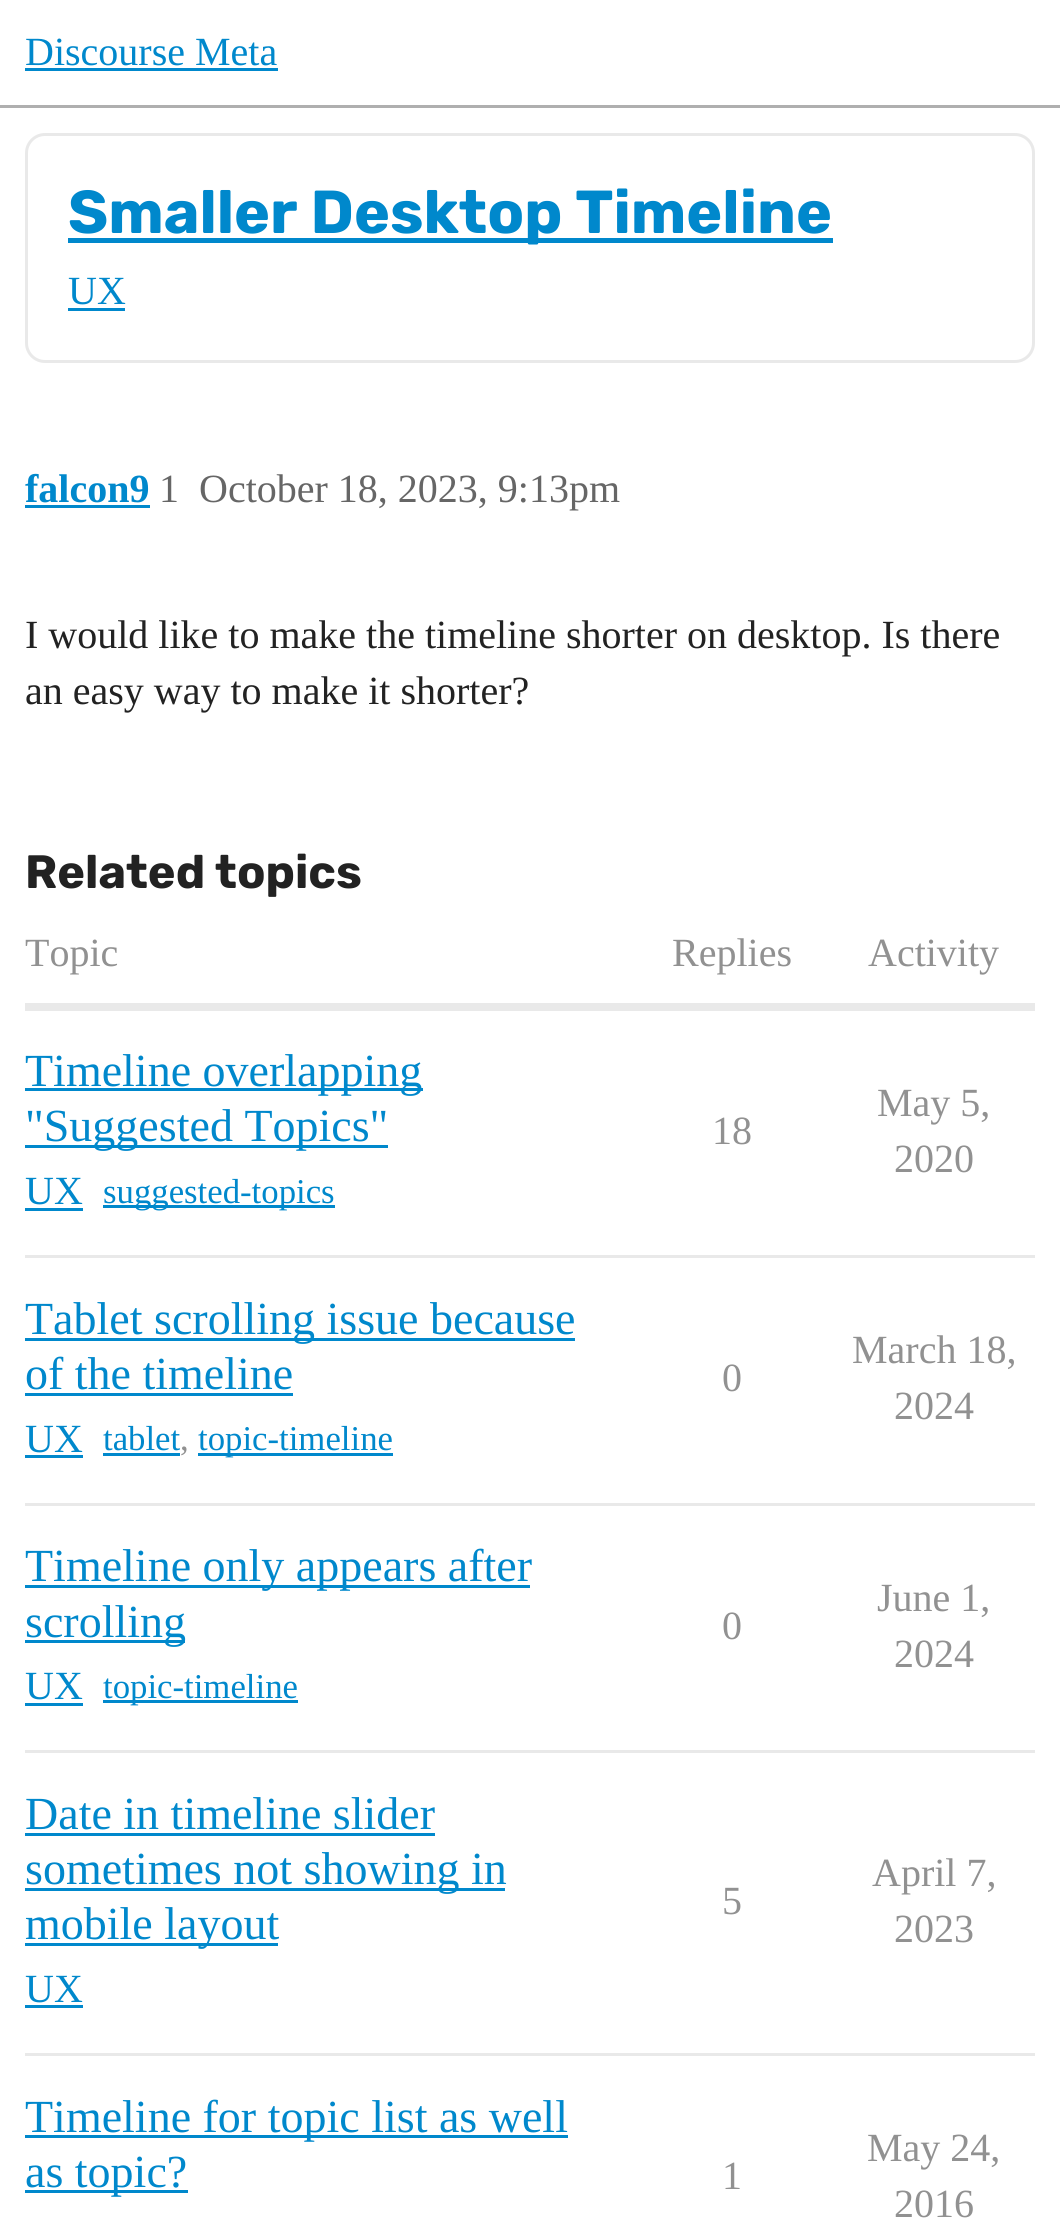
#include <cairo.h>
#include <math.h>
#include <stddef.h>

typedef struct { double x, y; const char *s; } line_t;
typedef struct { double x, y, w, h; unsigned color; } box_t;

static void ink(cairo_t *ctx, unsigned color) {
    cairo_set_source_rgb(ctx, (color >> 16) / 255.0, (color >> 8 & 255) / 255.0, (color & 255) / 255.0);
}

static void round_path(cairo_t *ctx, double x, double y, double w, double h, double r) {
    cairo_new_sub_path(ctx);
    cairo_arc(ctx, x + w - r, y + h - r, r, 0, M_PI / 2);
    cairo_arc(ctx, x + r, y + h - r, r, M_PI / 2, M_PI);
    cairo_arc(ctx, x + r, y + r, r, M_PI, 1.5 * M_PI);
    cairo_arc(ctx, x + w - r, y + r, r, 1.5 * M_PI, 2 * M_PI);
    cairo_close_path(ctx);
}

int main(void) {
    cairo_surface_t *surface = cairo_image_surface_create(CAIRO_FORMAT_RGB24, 1060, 2218);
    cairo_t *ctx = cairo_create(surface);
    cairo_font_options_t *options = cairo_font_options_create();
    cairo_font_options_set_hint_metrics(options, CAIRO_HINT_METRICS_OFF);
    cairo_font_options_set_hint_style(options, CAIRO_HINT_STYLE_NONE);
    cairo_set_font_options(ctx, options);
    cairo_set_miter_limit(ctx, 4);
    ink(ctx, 0xFFFFFF);
    cairo_paint(ctx);
    ink(ctx, 0xAFAFAF);
    cairo_rectangle(ctx, 0, 105, 1060, 3);
    cairo_fill(ctx);
    cairo_select_font_face(ctx, "Liberation Serif", CAIRO_FONT_SLANT_NORMAL, CAIRO_FONT_WEIGHT_NORMAL);
    cairo_set_font_size(ctx, 40);
    ink(ctx, 0x0088CC);
    cairo_move_to(ctx, 25, 65);
    cairo_show_text(ctx, "Discourse Meta");
    cairo_rectangle(ctx, 25, 68, 253, 3);
    cairo_fill(ctx);
    round_path(ctx, 26.5, 134.5, 1007, 227, 18.5);
    ink(ctx, 0xE9E9E9);
    cairo_set_line_width(ctx, 3);
    cairo_stroke(ctx);
    ink(ctx, 0x0088CC);
    cairo_rectangle(ctx, 68, 238, 765, 5);
    cairo_fill(ctx);
    cairo_select_font_face(ctx, "Rubik", CAIRO_FONT_SLANT_NORMAL, CAIRO_FONT_WEIGHT_BOLD);
    cairo_set_font_size(ctx, 60.6);
    cairo_move_to(ctx, 68, 233);
    cairo_show_text(ctx, "Smaller Desktop Timeline");
    cairo_select_font_face(ctx, "Liberation Serif", CAIRO_FONT_SLANT_NORMAL, CAIRO_FONT_WEIGHT_NORMAL);
    cairo_set_font_size(ctx, 40);
    cairo_move_to(ctx, 68, 304);
    cairo_show_text(ctx, "UX");
    cairo_rectangle(ctx, 68, 308, 57, 3);
    cairo_fill(ctx);
    cairo_select_font_face(ctx, "Liberation Serif", CAIRO_FONT_SLANT_NORMAL, CAIRO_FONT_WEIGHT_BOLD);
    cairo_move_to(ctx, 25, 502);
    cairo_show_text(ctx, "falcon9");
    cairo_rectangle(ctx, 25, 505, 125, 3);
    cairo_fill(ctx);
    cairo_select_font_face(ctx, "Liberation Serif", CAIRO_FONT_SLANT_NORMAL, CAIRO_FONT_WEIGHT_NORMAL);
    ink(ctx, 0x666666);
    cairo_move_to(ctx, 159, 502);
    cairo_show_text(ctx, "1");
    cairo_move_to(ctx, 199, 502);
    cairo_show_text(ctx, "October 18, 2023, 9:13pm");
    ink(ctx, 0x222222);
    cairo_move_to(ctx, 25, 648);
    cairo_show_text(ctx, "I would like to make the timeline shorter on desktop. Is there");
    cairo_move_to(ctx, 25, 704);
    cairo_show_text(ctx, "an easy way to make it shorter?");
    cairo_select_font_face(ctx, "Rubik", CAIRO_FONT_SLANT_NORMAL, CAIRO_FONT_WEIGHT_BOLD);
    cairo_set_font_size(ctx, 46.75);
    cairo_move_to(ctx, 25, 888);
    cairo_show_text(ctx, "Related topics");
    cairo_select_font_face(ctx, "Liberation Serif", CAIRO_FONT_SLANT_NORMAL, CAIRO_FONT_WEIGHT_NORMAL);
    cairo_set_font_size(ctx, 40);
    ink(ctx, 0x919191);
    {
        static const line_t items[] = {
            {25, 966, "Topic"},
            {672, 966, "Replies"},
            {868, 966, "Activity"},
        };
        for (size_t i = 0; i < sizeof items / sizeof *items; i++) {
            cairo_move_to(ctx, items[i].x, items[i].y);
            cairo_show_text(ctx, items[i].s);
        }
    }
    {
        static const box_t items[] = {
            {25, 1003, 1010, 8, 0xE9E9E9},
            {25, 1255, 1010, 3, 0xE9E9E9},
            {25, 1088, 398, 3, 0x0088CC},
        };
        for (size_t i = 0; i < sizeof items / sizeof *items; i++) {
            ink(ctx, items[i].color);
            cairo_rectangle(ctx, items[i].x, items[i].y, items[i].w, items[i].h);
            cairo_fill(ctx);
        }
    }
    cairo_set_font_size(ctx, 46);
    cairo_move_to(ctx, 25, 1086);
    cairo_show_text(ctx, "Timeline overlapping");
    cairo_rectangle(ctx, 25, 1145, 363, 3);
    cairo_fill(ctx);
    cairo_move_to(ctx, 25, 1141);
    cairo_show_text(ctx, "\"Suggested Topics\"");
    cairo_set_font_size(ctx, 40);
    cairo_move_to(ctx, 25, 1204);
    cairo_show_text(ctx, "UX");
    cairo_rectangle(ctx, 25, 1208, 58, 3);
    cairo_fill(ctx);
    cairo_rectangle(ctx, 103, 1205, 232, 3);
    cairo_fill(ctx);
    cairo_set_font_size(ctx, 34.75);
    cairo_move_to(ctx, 103, 1203);
    cairo_show_text(ctx, "suggested-topics");
    cairo_set_font_size(ctx, 40);
    ink(ctx, 0x919191);
    {
        static const line_t items[] = {
            {712, 1144, "18"},
            {877, 1116, "May 5,"},
            {894, 1172, "2020"},
        };
        for (size_t i = 0; i < sizeof items / sizeof *items; i++) {
            cairo_move_to(ctx, items[i].x, items[i].y);
            cairo_show_text(ctx, items[i].s);
        }
    }
    ink(ctx, 0xE9E9E9);
    cairo_rectangle(ctx, 25, 1503, 1010, 3);
    cairo_fill(ctx);
    ink(ctx, 0x0088CC);
    cairo_rectangle(ctx, 25, 1338, 550, 3);
    cairo_fill(ctx);
    cairo_set_font_size(ctx, 46);
    cairo_move_to(ctx, 25, 1334);
    cairo_show_text(ctx, "Tablet scrolling issue because");
    cairo_move_to(ctx, 25, 1389);
    cairo_show_text(ctx, "of the timeline");
    cairo_rectangle(ctx, 25, 1393, 268, 3);
    cairo_fill(ctx);
    cairo_set_font_size(ctx, 40);
    cairo_move_to(ctx, 25, 1452);
    cairo_show_text(ctx, "UX");
    cairo_rectangle(ctx, 25, 1455, 58, 3);
    cairo_fill(ctx);
    cairo_set_font_size(ctx, 34.75);
    cairo_move_to(ctx, 103, 1450);
    cairo_show_text(ctx, "tablet");
    cairo_rectangle(ctx, 103, 1453, 77, 3);
    cairo_fill(ctx);
    ink(ctx, 0x919191);
    cairo_move_to(ctx, 180, 1450);
    cairo_show_text(ctx, ",");
    ink(ctx, 0x0088CC);
    cairo_rectangle(ctx, 198, 1453, 195, 3);
    cairo_fill(ctx);
    cairo_move_to(ctx, 198, 1450);
    cairo_show_text(ctx, "topic-timeline");
    cairo_set_font_size(ctx, 40);
    ink(ctx, 0x919191);
    {
        static const line_t items[] = {
            {722, 1391, "0"},
            {852, 1363, "March 18,"},
            {894, 1419, "2024"},
        };
        for (size_t i = 0; i < sizeof items / sizeof *items; i++) {
            cairo_move_to(ctx, items[i].x, items[i].y);
            cairo_show_text(ctx, items[i].s);
        }
    }
    ink(ctx, 0xE9E9E9);
    cairo_rectangle(ctx, 25, 1750, 1010, 3);
    cairo_fill(ctx);
    ink(ctx, 0x0088CC);
    cairo_rectangle(ctx, 25, 1585, 505, 3);
    cairo_fill(ctx);
    cairo_set_font_size(ctx, 46);
    cairo_move_to(ctx, 25, 1581);
    cairo_show_text(ctx, "Timeline only appears after");
    cairo_rectangle(ctx, 25, 1640, 160, 3);
    cairo_fill(ctx);
    cairo_move_to(ctx, 25, 1637);
    cairo_show_text(ctx, "scrolling");
    cairo_set_font_size(ctx, 40);
    cairo_move_to(ctx, 25, 1699);
    cairo_show_text(ctx, "UX");
    cairo_rectangle(ctx, 25, 1703, 58, 3);
    cairo_fill(ctx);
    cairo_rectangle(ctx, 103, 1700, 195, 3);
    cairo_fill(ctx);
    cairo_set_font_size(ctx, 34.75);
    cairo_move_to(ctx, 103, 1698);
    cairo_show_text(ctx, "topic-timeline");
    cairo_set_font_size(ctx, 40);
    ink(ctx, 0x919191);
    {
        static const line_t items[] = {
            {722, 1639, "0"},
            {877, 1611, "June 1,"},
            {894, 1667, "2024"},
        };
        for (size_t i = 0; i < sizeof items / sizeof *items; i++) {
            cairo_move_to(ctx, items[i].x, items[i].y);
            cairo_show_text(ctx, items[i].s);
        }
    }
    ink(ctx, 0xE9E9E9);
    cairo_rectangle(ctx, 25, 2053, 1010, 3);
    cairo_fill(ctx);
    cairo_set_font_size(ctx, 46);
    ink(ctx, 0x0088CC);
    cairo_move_to(ctx, 25, 1829);
    cairo_show_text(ctx, "Date in timeline slider");
    cairo_rectangle(ctx, 25, 1833, 410, 3);
    cairo_fill(ctx);
    cairo_rectangle(ctx, 25, 1888, 480, 3);
    cairo_fill(ctx);
    cairo_move_to(ctx, 25, 1884);
    cairo_show_text(ctx, "sometimes not showing in");
    cairo_rectangle(ctx, 25, 1943, 253, 3);
    cairo_fill(ctx);
    cairo_move_to(ctx, 25, 1939);
    cairo_show_text(ctx, "mobile layout");
    cairo_set_font_size(ctx, 40);
    cairo_move_to(ctx, 25, 2002);
    cairo_show_text(ctx, "UX");
    cairo_rectangle(ctx, 25, 2005, 58, 3);
    cairo_fill(ctx);
    ink(ctx, 0x919191);
    {
        static const line_t items[] = {
            {722, 1914, "5"},
            {872, 1886, "April 7,"},
            {894, 1942, "2023"},
        };
        for (size_t i = 0; i < sizeof items / sizeof *items; i++) {
            cairo_move_to(ctx, items[i].x, items[i].y);
            cairo_show_text(ctx, items[i].s);
        }
    }
    ink(ctx, 0x0088CC);
    cairo_rectangle(ctx, 25, 2135, 543, 3);
    cairo_fill(ctx);
    cairo_set_font_size(ctx, 46);
    cairo_move_to(ctx, 25, 2132);
    cairo_show_text(ctx, "Timeline for topic list as well");
    cairo_rectangle(ctx, 25, 2190, 163, 3);
    cairo_fill(ctx);
    cairo_move_to(ctx, 25, 2187);
    cairo_show_text(ctx, "as topic?");
    cairo_set_font_size(ctx, 40);
    ink(ctx, 0x919191);
    {
        static const line_t items[] = {
            {722, 2189, "1"},
            {867, 2161, "May 24,"},
            {894, 2217, "2016"},
        };
        for (size_t i = 0; i < sizeof items / sizeof *items; i++) {
            cairo_move_to(ctx, items[i].x, items[i].y);
            cairo_show_text(ctx, items[i].s);
        }
    }
    cairo_surface_write_to_png(surface, "image.png");
    cairo_font_options_destroy(options);
    cairo_destroy(ctx);
    cairo_surface_destroy(surface);
    return 0;
}
